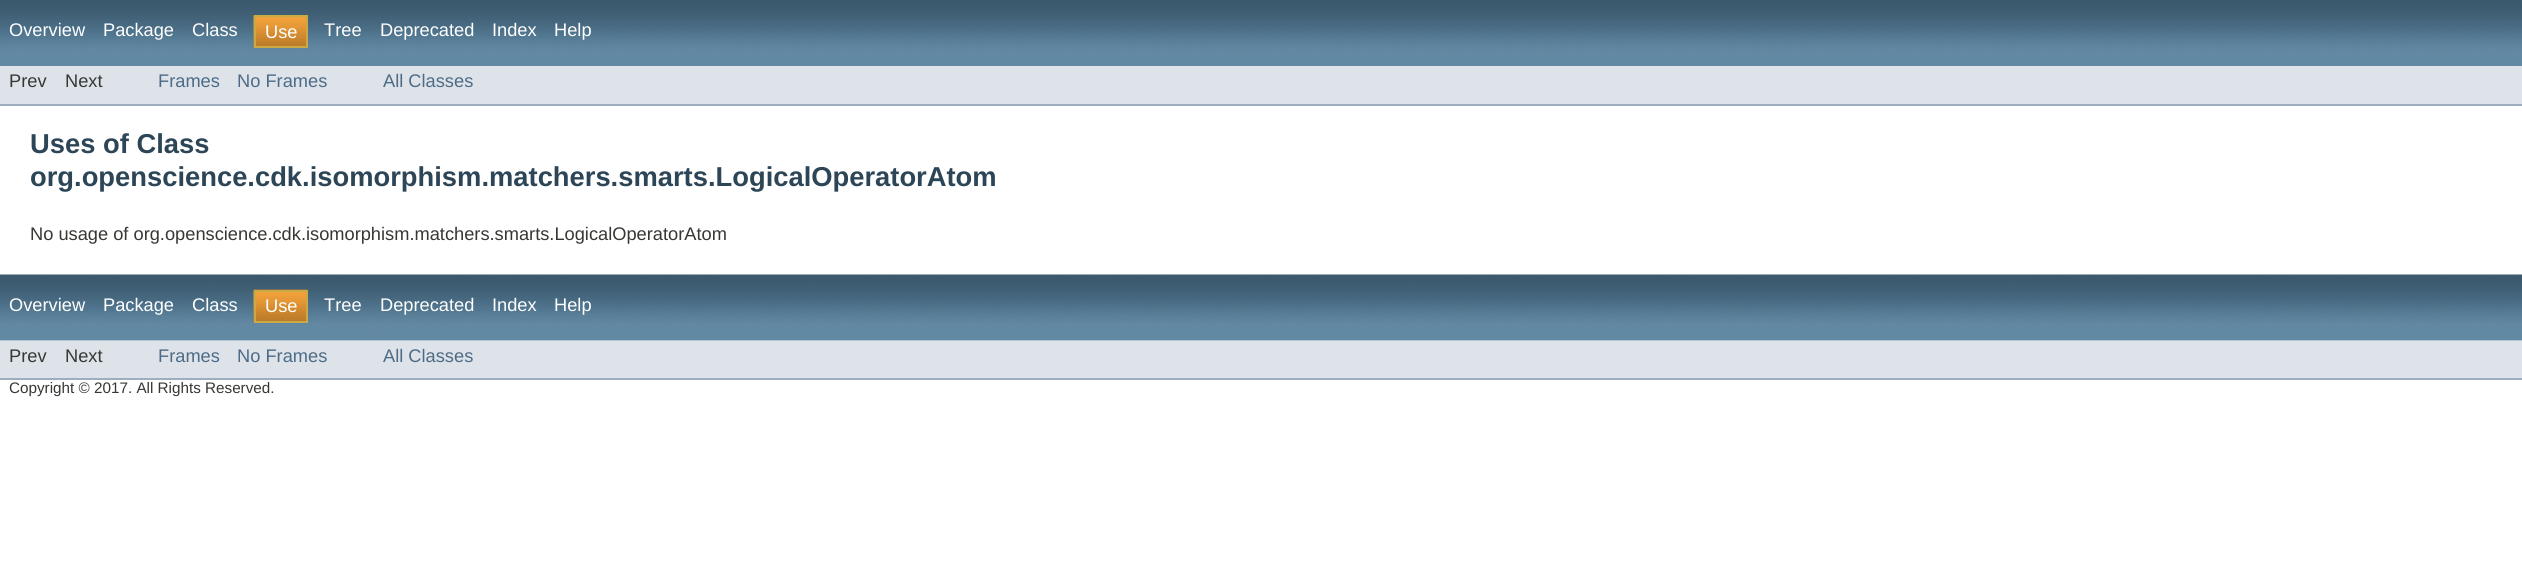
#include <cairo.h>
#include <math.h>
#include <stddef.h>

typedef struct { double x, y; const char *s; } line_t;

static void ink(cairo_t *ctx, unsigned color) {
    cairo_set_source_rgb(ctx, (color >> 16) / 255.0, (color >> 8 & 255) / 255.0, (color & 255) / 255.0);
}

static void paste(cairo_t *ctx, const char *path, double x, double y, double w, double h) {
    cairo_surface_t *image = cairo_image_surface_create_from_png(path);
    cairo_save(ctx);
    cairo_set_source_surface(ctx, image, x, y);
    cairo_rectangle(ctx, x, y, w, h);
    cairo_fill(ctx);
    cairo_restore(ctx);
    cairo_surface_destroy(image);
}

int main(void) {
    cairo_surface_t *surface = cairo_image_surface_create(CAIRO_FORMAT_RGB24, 2522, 585);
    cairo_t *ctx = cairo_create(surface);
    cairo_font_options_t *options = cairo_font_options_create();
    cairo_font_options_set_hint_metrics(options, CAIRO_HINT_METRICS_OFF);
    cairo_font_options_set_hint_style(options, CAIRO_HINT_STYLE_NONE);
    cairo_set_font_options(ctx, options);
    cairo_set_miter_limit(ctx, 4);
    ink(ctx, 0xFFFFFF);
    cairo_paint(ctx);
    paste(ctx, "media/1.png", 0, 0, 2522, 66);
    cairo_select_font_face(ctx, "Liberation Sans", CAIRO_FONT_SLANT_NORMAL, CAIRO_FONT_WEIGHT_NORMAL);
    cairo_set_font_size(ctx, 18.25);
    ink(ctx, 0xFFFFFF);
    {
        static const line_t items[] = {
            {9, 36, "Overview"},
            {103, 36, "Package"},
            {192, 36, "Class"},
        };
        for (size_t i = 0; i < sizeof items / sizeof *items; i++) {
            cairo_move_to(ctx, items[i].x, items[i].y);
            cairo_show_text(ctx, items[i].s);
        }
    }
    paste(ctx, "media/2.png", 253, 15, 53, 33);
    cairo_rectangle(ctx, 255, 16, 52, 31);
    ink(ctx, 0xC9AA44);
    cairo_stroke(ctx);
    ink(ctx, 0xFFFFFF);
    {
        static const line_t items[] = {
            {265, 38, "Use"},
            {324, 36, "Tree"},
            {380, 36, "Deprecated"},
            {492, 36, "Index"},
            {554, 36, "Help"},
        };
        for (size_t i = 0; i < sizeof items / sizeof *items; i++) {
            cairo_move_to(ctx, items[i].x, items[i].y);
            cairo_show_text(ctx, items[i].s);
        }
    }
    ink(ctx, 0xDEE3E9);
    cairo_rectangle(ctx, 0, 66, 2522, 38);
    cairo_fill(ctx);
    ink(ctx, 0x9EADC0);
    cairo_rectangle(ctx, 0, 104, 2522, 2);
    cairo_fill(ctx);
    ink(ctx, 0x353833);
    cairo_move_to(ctx, 9, 87);
    cairo_show_text(ctx, "Prev");
    cairo_move_to(ctx, 65, 87);
    cairo_show_text(ctx, "Next");
    ink(ctx, 0x4C6B87);
    {
        static const line_t items[] = {
            {158, 87, "Frames"},
            {237, 87, "No Frames"},
            {383, 87, "All Classes"},
        };
        for (size_t i = 0; i < sizeof items / sizeof *items; i++) {
            cairo_move_to(ctx, items[i].x, items[i].y);
            cairo_show_text(ctx, items[i].s);
        }
    }
    cairo_select_font_face(ctx, "Liberation Sans", CAIRO_FONT_SLANT_NORMAL, CAIRO_FONT_WEIGHT_BOLD);
    cairo_set_font_size(ctx, 27.35);
    ink(ctx, 0x2C4557);
    cairo_move_to(ctx, 30, 153);
    cairo_show_text(ctx, "Uses of Class");
    cairo_move_to(ctx, 30, 186);
    cairo_show_text(ctx, "org.openscience.cdk.isomorphism.matchers.smarts.LogicalOperatorAtom");
    cairo_select_font_face(ctx, "Liberation Sans", CAIRO_FONT_SLANT_NORMAL, CAIRO_FONT_WEIGHT_NORMAL);
    cairo_set_font_size(ctx, 18.25);
    ink(ctx, 0x353833);
    cairo_move_to(ctx, 30, 240);
    cairo_show_text(ctx, "No usage of org.openscience.cdk.isomorphism.matchers.smarts.LogicalOperatorAtom");
    paste(ctx, "media/3.png", 0, 274, 2522, 67);
    ink(ctx, 0xFFFFFF);
    {
        static const line_t items[] = {
            {9, 311, "Overview"},
            {103, 311, "Package"},
            {192, 311, "Class"},
        };
        for (size_t i = 0; i < sizeof items / sizeof *items; i++) {
            cairo_move_to(ctx, items[i].x, items[i].y);
            cairo_show_text(ctx, items[i].s);
        }
    }
    paste(ctx, "media/4.png", 253, 289, 55, 34);
    cairo_rectangle(ctx, 255, 291, 52, 31);
    ink(ctx, 0xC9AA44);
    cairo_stroke(ctx);
    ink(ctx, 0xFFFFFF);
    {
        static const line_t items[] = {
            {265, 312, "Use"},
            {324, 311, "Tree"},
            {380, 311, "Deprecated"},
            {492, 311, "Index"},
            {554, 311, "Help"},
        };
        for (size_t i = 0; i < sizeof items / sizeof *items; i++) {
            cairo_move_to(ctx, items[i].x, items[i].y);
            cairo_show_text(ctx, items[i].s);
        }
    }
    ink(ctx, 0xDEE3E9);
    cairo_rectangle(ctx, 0, 341, 2522, 37);
    cairo_fill(ctx);
    ink(ctx, 0x9EADC0);
    cairo_rectangle(ctx, 0, 378, 2522, 2);
    cairo_fill(ctx);
    ink(ctx, 0x353833);
    cairo_move_to(ctx, 9, 362);
    cairo_show_text(ctx, "Prev");
    cairo_move_to(ctx, 65, 362);
    cairo_show_text(ctx, "Next");
    ink(ctx, 0x4C6B87);
    {
        static const line_t items[] = {
            {158, 362, "Frames"},
            {237, 362, "No Frames"},
            {383, 362, "All Classes"},
        };
        for (size_t i = 0; i < sizeof items / sizeof *items; i++) {
            cairo_move_to(ctx, items[i].x, items[i].y);
            cairo_show_text(ctx, items[i].s);
        }
    }
    cairo_set_font_size(ctx, 15.25);
    ink(ctx, 0x353833);
    cairo_move_to(ctx, 9, 393);
    cairo_show_text(ctx, "Copyright © 2017. All Rights Reserved.");
    cairo_surface_write_to_png(surface, "image.png");
    cairo_font_options_destroy(options);
    cairo_destroy(ctx);
    cairo_surface_destroy(surface);
    return 0;
}
